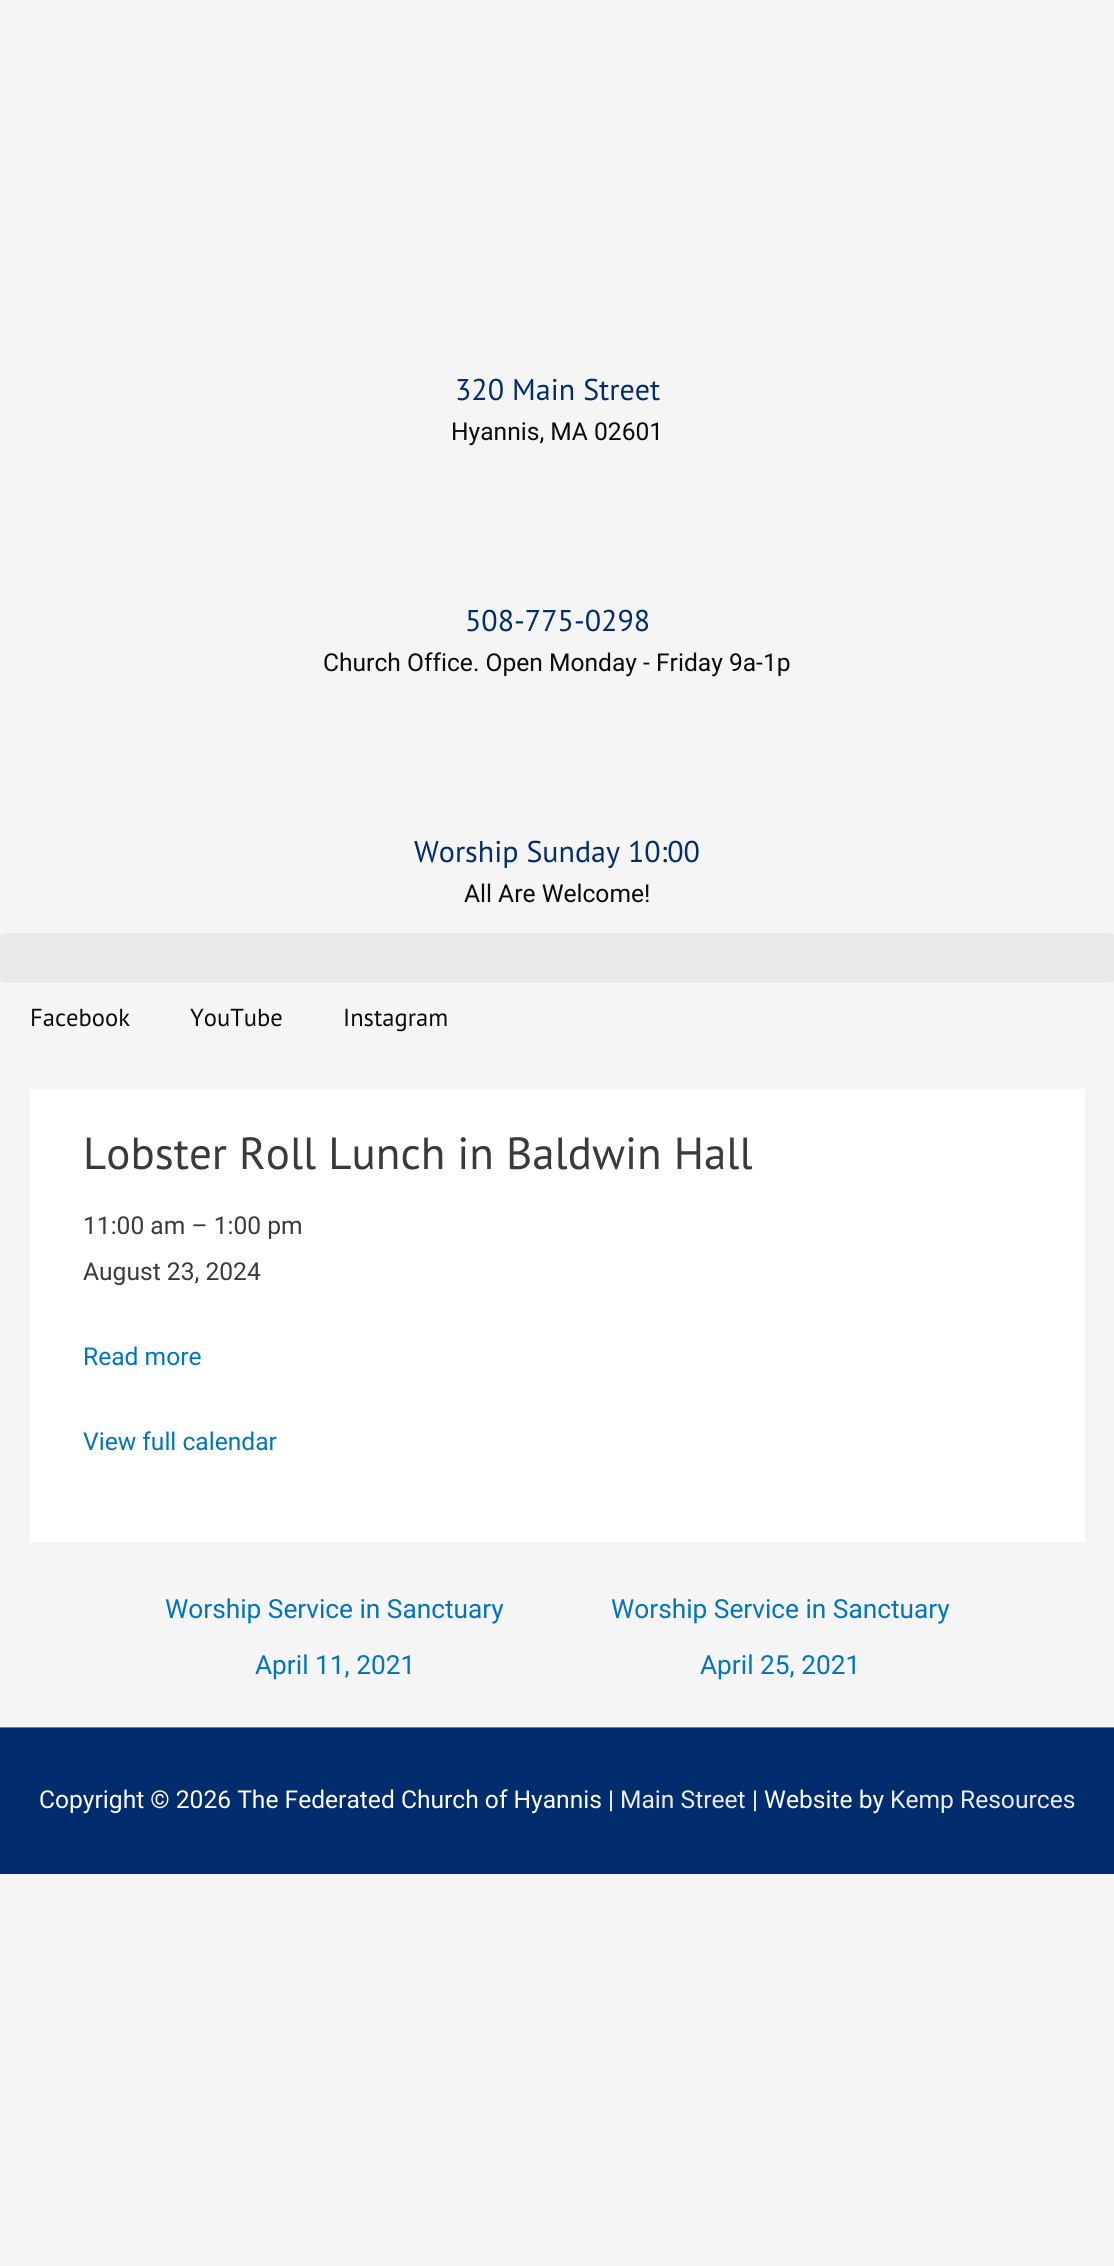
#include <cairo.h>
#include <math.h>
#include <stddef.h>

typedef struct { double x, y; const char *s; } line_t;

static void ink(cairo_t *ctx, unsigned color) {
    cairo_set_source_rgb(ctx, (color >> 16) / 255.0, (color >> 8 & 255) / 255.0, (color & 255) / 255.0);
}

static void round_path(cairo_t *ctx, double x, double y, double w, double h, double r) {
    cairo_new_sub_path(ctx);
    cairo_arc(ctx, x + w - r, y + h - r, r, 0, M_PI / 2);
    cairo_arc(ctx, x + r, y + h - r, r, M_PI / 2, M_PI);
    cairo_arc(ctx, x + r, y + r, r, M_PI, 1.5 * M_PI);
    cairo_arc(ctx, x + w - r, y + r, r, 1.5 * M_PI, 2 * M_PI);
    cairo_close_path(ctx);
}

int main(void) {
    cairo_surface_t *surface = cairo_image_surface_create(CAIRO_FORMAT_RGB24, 1114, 2266);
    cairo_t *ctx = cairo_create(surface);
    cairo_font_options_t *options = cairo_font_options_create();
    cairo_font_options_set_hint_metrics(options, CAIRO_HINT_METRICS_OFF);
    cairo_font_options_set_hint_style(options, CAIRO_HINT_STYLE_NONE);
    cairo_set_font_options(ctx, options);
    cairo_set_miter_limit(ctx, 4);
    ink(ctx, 0xF5F5F5);
    cairo_paint(ctx);
    cairo_select_font_face(ctx, "PT Sans", CAIRO_FONT_SLANT_NORMAL, CAIRO_FONT_WEIGHT_NORMAL);
    cairo_set_font_size(ctx, 30);
    ink(ctx, 0x012C6D);
    cairo_move_to(ctx, 455, 400);
    cairo_show_text(ctx, "320 Main Street");
    cairo_select_font_face(ctx, "Roboto", CAIRO_FONT_SLANT_NORMAL, CAIRO_FONT_WEIGHT_NORMAL);
    cairo_set_font_size(ctx, 24.6);
    ink(ctx, 0x0C0C0C);
    cairo_move_to(ctx, 451, 440);
    cairo_show_text(ctx, "Hyannis, MA 02601");
    cairo_select_font_face(ctx, "PT Sans", CAIRO_FONT_SLANT_NORMAL, CAIRO_FONT_WEIGHT_NORMAL);
    cairo_set_font_size(ctx, 30);
    ink(ctx, 0x012C6D);
    cairo_move_to(ctx, 465, 631);
    cairo_show_text(ctx, "508-775-0298");
    cairo_select_font_face(ctx, "Roboto", CAIRO_FONT_SLANT_NORMAL, CAIRO_FONT_WEIGHT_NORMAL);
    cairo_set_font_size(ctx, 24.6);
    ink(ctx, 0x0C0C0C);
    cairo_move_to(ctx, 323, 671);
    cairo_show_text(ctx, "Church Office. Open Monday - Friday 9a-1p");
    cairo_select_font_face(ctx, "PT Sans", CAIRO_FONT_SLANT_NORMAL, CAIRO_FONT_WEIGHT_NORMAL);
    cairo_set_font_size(ctx, 30);
    ink(ctx, 0x012C6D);
    cairo_move_to(ctx, 414, 862);
    cairo_show_text(ctx, "Worship Sunday 10:00");
    cairo_select_font_face(ctx, "Roboto", CAIRO_FONT_SLANT_NORMAL, CAIRO_FONT_WEIGHT_NORMAL);
    cairo_set_font_size(ctx, 24.6);
    ink(ctx, 0x0C0C0C);
    cairo_move_to(ctx, 464, 902);
    cairo_show_text(ctx, "All Are Welcome!");
    ink(ctx, 0xE9E9E9);
    round_path(ctx, 0, 933, 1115, 50, 5);
    cairo_fill(ctx);
    cairo_select_font_face(ctx, "PT Sans", CAIRO_FONT_SLANT_NORMAL, CAIRO_FONT_WEIGHT_NORMAL);
    ink(ctx, 0x0C0C0C);
    {
        static const line_t items[] = {
            {30, 1026, "Facebook"},
            {190, 1026, "YouTube"},
            {343, 1026, "Instagram"},
        };
        for (size_t i = 0; i < sizeof items / sizeof *items; i++) {
            cairo_move_to(ctx, items[i].x, items[i].y);
            cairo_show_text(ctx, items[i].s);
        }
    }
    ink(ctx, 0xFFFFFF);
    cairo_rectangle(ctx, 30, 1089, 1055, 453);
    cairo_fill(ctx);
    cairo_set_font_size(ctx, 45);
    ink(ctx, 0x3A3A3A);
    cairo_move_to(ctx, 83, 1169);
    cairo_show_text(ctx, "Lobster Roll Lunch in Baldwin Hall");
    cairo_select_font_face(ctx, "Roboto", CAIRO_FONT_SLANT_NORMAL, CAIRO_FONT_WEIGHT_NORMAL);
    cairo_set_font_size(ctx, 24.6);
    cairo_move_to(ctx, 83, 1234);
    cairo_show_text(ctx, "11:00 am – 1:00 pm");
    cairo_move_to(ctx, 83, 1280);
    cairo_show_text(ctx, "August 23, 2024");
    ink(ctx, 0x0274BE);
    cairo_move_to(ctx, 83, 1365);
    cairo_show_text(ctx, "Read more");
    cairo_move_to(ctx, 83, 1450);
    cairo_show_text(ctx, "View full calendar");
    cairo_set_font_size(ctx, 26.25);
    {
        static const line_t items[] = {
            {165, 1618, "Worship Service in Sanctuary"},
            {255, 1674, "April 11, 2021"},
            {611, 1618, "Worship Service in Sanctuary"},
            {700, 1674, "April 25, 2021"},
        };
        for (size_t i = 0; i < sizeof items / sizeof *items; i++) {
            cairo_move_to(ctx, items[i].x, items[i].y);
            cairo_show_text(ctx, items[i].s);
        }
    }
    ink(ctx, 0x7A7A7A);
    cairo_rectangle(ctx, 0, 1727, 1114, 1);
    cairo_fill(ctx);
    ink(ctx, 0x012C6D);
    cairo_rectangle(ctx, 0, 1728, 1114, 146);
    cairo_fill(ctx);
    cairo_set_font_size(ctx, 24.6);
    ink(ctx, 0xFFFFFF);
    cairo_move_to(ctx, 39, 1808);
    cairo_show_text(ctx, "Copyright © 2026 The Federated Church of Hyannis |");
    ink(ctx, 0xEAEAEA);
    cairo_move_to(ctx, 620, 1808);
    cairo_show_text(ctx, "Main Street");
    ink(ctx, 0xFFFFFF);
    cairo_move_to(ctx, 752, 1808);
    cairo_show_text(ctx, "| Website by");
    ink(ctx, 0xEAEAEA);
    cairo_move_to(ctx, 890, 1808);
    cairo_show_text(ctx, "Kemp Resources");
    cairo_surface_write_to_png(surface, "image.png");
    cairo_font_options_destroy(options);
    cairo_destroy(ctx);
    cairo_surface_destroy(surface);
    return 0;
}
